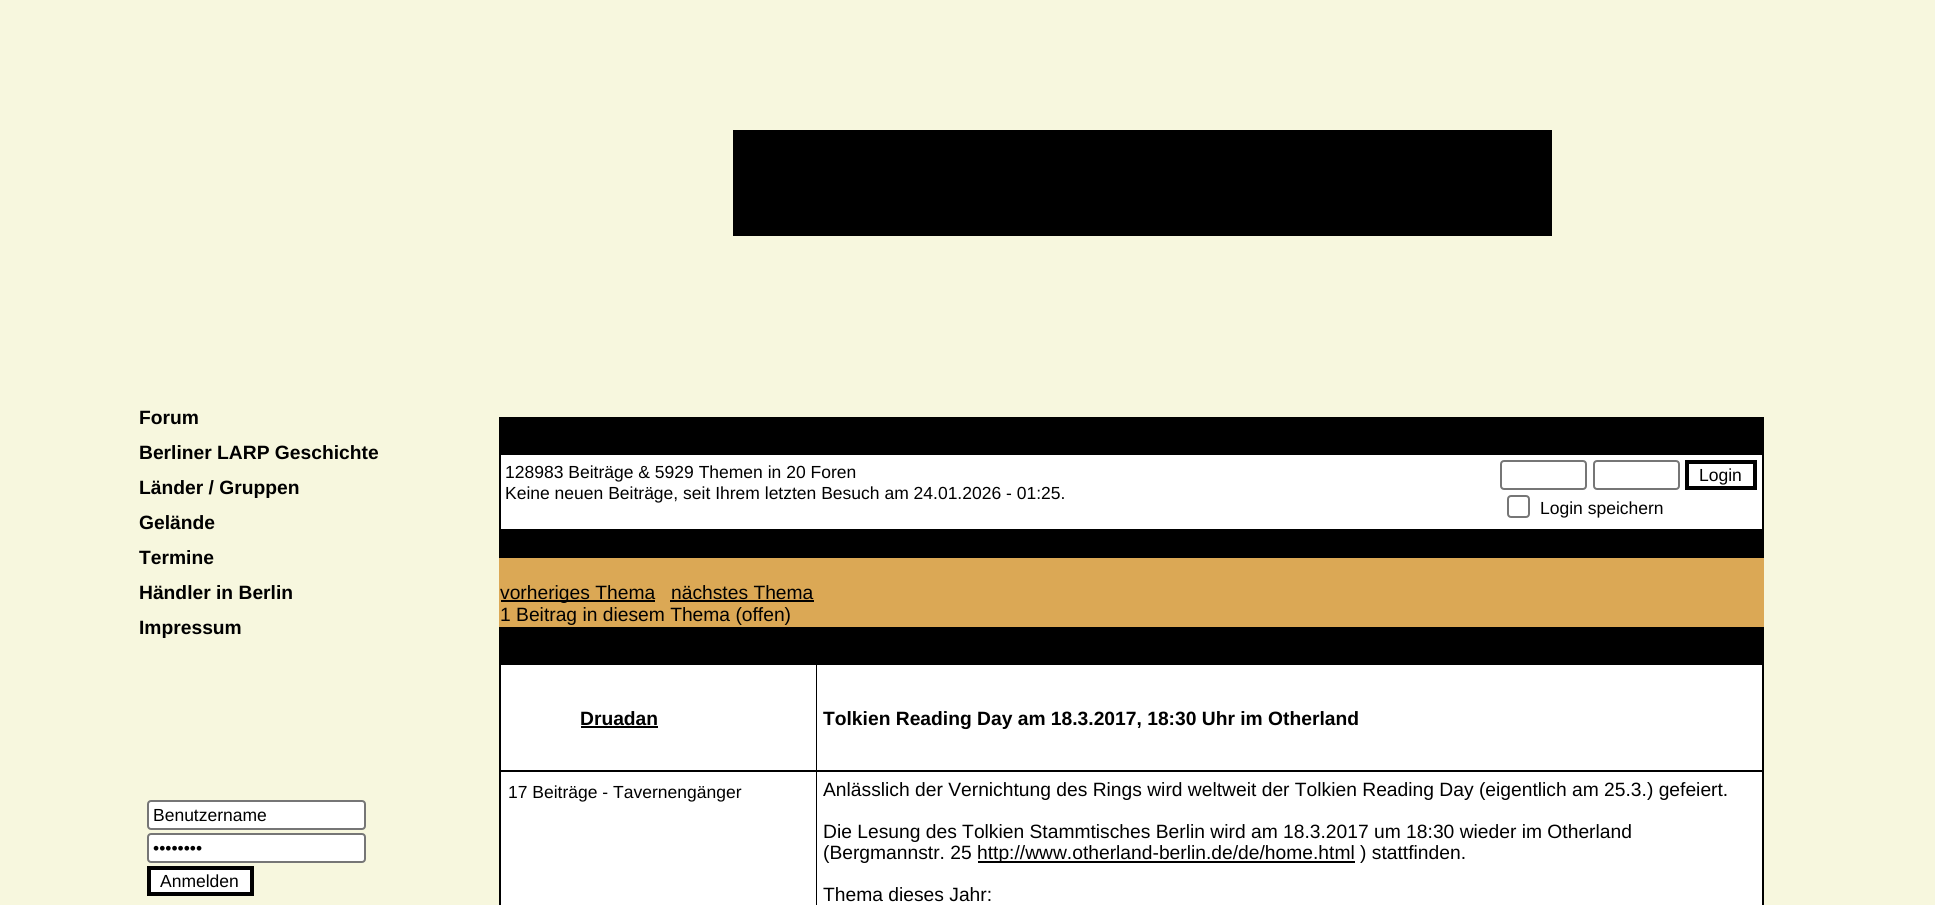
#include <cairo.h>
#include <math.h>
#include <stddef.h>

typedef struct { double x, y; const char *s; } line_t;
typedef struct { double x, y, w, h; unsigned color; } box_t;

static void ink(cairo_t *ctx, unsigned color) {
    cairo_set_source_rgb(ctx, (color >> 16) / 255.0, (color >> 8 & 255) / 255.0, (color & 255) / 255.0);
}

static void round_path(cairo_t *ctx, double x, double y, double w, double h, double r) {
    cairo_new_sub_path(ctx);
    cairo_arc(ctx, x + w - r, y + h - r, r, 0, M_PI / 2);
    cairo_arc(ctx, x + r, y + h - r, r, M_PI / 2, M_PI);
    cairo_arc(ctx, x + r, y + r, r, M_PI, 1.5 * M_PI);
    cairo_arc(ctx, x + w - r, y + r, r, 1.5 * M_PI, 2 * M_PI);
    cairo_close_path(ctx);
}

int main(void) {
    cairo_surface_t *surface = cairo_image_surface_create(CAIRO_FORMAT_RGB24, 1935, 905);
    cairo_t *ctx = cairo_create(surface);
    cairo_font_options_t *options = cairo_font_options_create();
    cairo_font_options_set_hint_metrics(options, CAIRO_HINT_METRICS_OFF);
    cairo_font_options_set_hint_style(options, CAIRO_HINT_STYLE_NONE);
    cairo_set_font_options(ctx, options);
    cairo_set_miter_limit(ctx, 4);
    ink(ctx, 0xF7F7DE);
    cairo_paint(ctx);
    ink(ctx, 0x000000);
    cairo_rectangle(ctx, 733, 130, 819, 106);
    cairo_fill(ctx);
    cairo_select_font_face(ctx, "Liberation Sans", CAIRO_FONT_SLANT_NORMAL, CAIRO_FONT_WEIGHT_BOLD);
    cairo_set_font_size(ctx, 19.25);
    {
        static const line_t items[] = {
            {139, 424, "Forum"},
            {139, 459, "Berliner LARP Geschichte"},
            {139, 494, "Länder / Gruppen"},
            {139, 529, "Gelände"},
            {139, 564, "Termine"},
            {139, 599, "Händler in Berlin"},
            {139, 634, "Impressum"},
        };
        for (size_t i = 0; i < sizeof items / sizeof *items; i++) {
            cairo_move_to(ctx, items[i].x, items[i].y);
            cairo_show_text(ctx, items[i].s);
        }
    }
    ink(ctx, 0xFFFFFF);
    round_path(ctx, 148, 801, 217, 28, 3);
    cairo_fill_preserve(ctx);
    ink(ctx, 0x767676);
    cairo_stroke(ctx);
    cairo_select_font_face(ctx, "Liberation Sans", CAIRO_FONT_SLANT_NORMAL, CAIRO_FONT_WEIGHT_NORMAL);
    cairo_set_font_size(ctx, 17.5);
    ink(ctx, 0x000000);
    cairo_move_to(ctx, 153, 821);
    cairo_show_text(ctx, "Benutzername");
    ink(ctx, 0xFFFFFF);
    round_path(ctx, 148, 834, 217, 28, 3);
    cairo_fill_preserve(ctx);
    ink(ctx, 0x767676);
    cairo_stroke(ctx);
    ink(ctx, 0x000000);
    cairo_move_to(ctx, 153, 854);
    cairo_show_text(ctx, "••••••••");
    ink(ctx, 0xFFFFFF);
    cairo_rectangle(ctx, 149, 868, 103, 26);
    cairo_fill_preserve(ctx);
    ink(ctx, 0x000000);
    cairo_set_line_width(ctx, 4);
    cairo_stroke(ctx);
    cairo_move_to(ctx, 160, 887);
    cairo_show_text(ctx, "Anmelden");
    {
        static const box_t items[] = {
            {499, 558, 1265, 69, 0xDBA855},
            {499, 417, 1265, 141, 0x000000},
            {501, 455, 1261, 74, 0xFFFFFF},
        };
        for (size_t i = 0; i < sizeof items / sizeof *items; i++) {
            ink(ctx, items[i].color);
            cairo_rectangle(ctx, items[i].x, items[i].y, items[i].w, items[i].h);
            cairo_fill(ctx);
        }
    }
    ink(ctx, 0x000000);
    cairo_move_to(ctx, 505, 478);
    cairo_show_text(ctx, "128983 Beiträge & 5929 Themen in 20 Foren");
    cairo_move_to(ctx, 505, 499);
    cairo_show_text(ctx, "Keine neuen Beiträge, seit Ihrem letzten Besuch am 24.01.2026 - 01:25.");
    round_path(ctx, 1501, 461, 85, 28, 3);
    ink(ctx, 0x767676);
    cairo_set_line_width(ctx, 2);
    cairo_stroke(ctx);
    round_path(ctx, 1594, 461, 85, 28, 3);
    cairo_stroke(ctx);
    cairo_rectangle(ctx, 1687, 462, 68, 26);
    ink(ctx, 0x000000);
    cairo_set_line_width(ctx, 4);
    cairo_stroke(ctx);
    cairo_move_to(ctx, 1699, 481);
    cairo_show_text(ctx, "Login");
    round_path(ctx, 1508, 496, 21, 21, 3);
    ink(ctx, 0x767676);
    cairo_set_line_width(ctx, 2);
    cairo_stroke(ctx);
    ink(ctx, 0x000000);
    cairo_move_to(ctx, 1540, 514);
    cairo_show_text(ctx, "Login speichern");
    cairo_rectangle(ctx, 501, 600, 154, 2);
    cairo_fill(ctx);
    cairo_set_font_size(ctx, 19.25);
    cairo_move_to(ctx, 500, 599);
    cairo_show_text(ctx, "vorheriges Thema");
    cairo_move_to(ctx, 671, 599);
    cairo_show_text(ctx, "nächstes Thema");
    cairo_rectangle(ctx, 670, 600, 144, 2);
    cairo_fill(ctx);
    cairo_move_to(ctx, 500, 621);
    cairo_show_text(ctx, "1 Beitrag in diesem Thema (offen)");
    cairo_rectangle(ctx, 499, 627, 1265, 278);
    cairo_fill(ctx);
    ink(ctx, 0xFFFFFF);
    cairo_rectangle(ctx, 501, 665, 315, 105);
    cairo_fill(ctx);
    cairo_select_font_face(ctx, "Liberation Sans", CAIRO_FONT_SLANT_NORMAL, CAIRO_FONT_WEIGHT_BOLD);
    ink(ctx, 0x000000);
    cairo_move_to(ctx, 580, 725);
    cairo_show_text(ctx, "Druadan");
    cairo_rectangle(ctx, 581, 726, 77, 2);
    cairo_fill(ctx);
    ink(ctx, 0xFFFFFF);
    cairo_rectangle(ctx, 817, 665, 945, 105);
    cairo_fill(ctx);
    ink(ctx, 0x000000);
    cairo_move_to(ctx, 823, 725);
    cairo_show_text(ctx, "Tolkien Reading Day am 18.3.2017, 18:30 Uhr im Otherland");
    ink(ctx, 0xFFFFFF);
    cairo_rectangle(ctx, 501, 772, 315, 133);
    cairo_fill(ctx);
    cairo_select_font_face(ctx, "Liberation Sans", CAIRO_FONT_SLANT_NORMAL, CAIRO_FONT_WEIGHT_NORMAL);
    cairo_set_font_size(ctx, 17.5);
    ink(ctx, 0x000000);
    cairo_move_to(ctx, 508, 798);
    cairo_show_text(ctx, "17 Beiträge - Tavernengänger");
    ink(ctx, 0xFFFFFF);
    cairo_rectangle(ctx, 817, 772, 945, 133);
    cairo_fill(ctx);
    cairo_set_font_size(ctx, 19.25);
    ink(ctx, 0x000000);
    {
        static const line_t items[] = {
            {823, 796, "Anlässlich der Vernichtung des Rings wird weltweit der Tolkien Reading Day (eigentlich am 25.3.) gefeiert."},
            {823, 838, "Die Lesung des Tolkien Stammtisches Berlin wird am 18.3.2017 um 18:30 wieder im Otherland"},
            {823, 859, "(Bergmannstr. 25"},
        };
        for (size_t i = 0; i < sizeof items / sizeof *items; i++) {
            cairo_move_to(ctx, items[i].x, items[i].y);
            cairo_show_text(ctx, items[i].s);
        }
    }
    cairo_rectangle(ctx, 978, 861, 377, 2);
    cairo_fill(ctx);
    cairo_move_to(ctx, 977, 859);
    cairo_show_text(ctx, "http://www.otherland-berlin.de/de/home.html ) stattfinden.");
    cairo_move_to(ctx, 823, 901);
    cairo_show_text(ctx, "Thema dieses Jahr:");
    cairo_surface_write_to_png(surface, "image.png");
    cairo_font_options_destroy(options);
    cairo_destroy(ctx);
    cairo_surface_destroy(surface);
    return 0;
}
